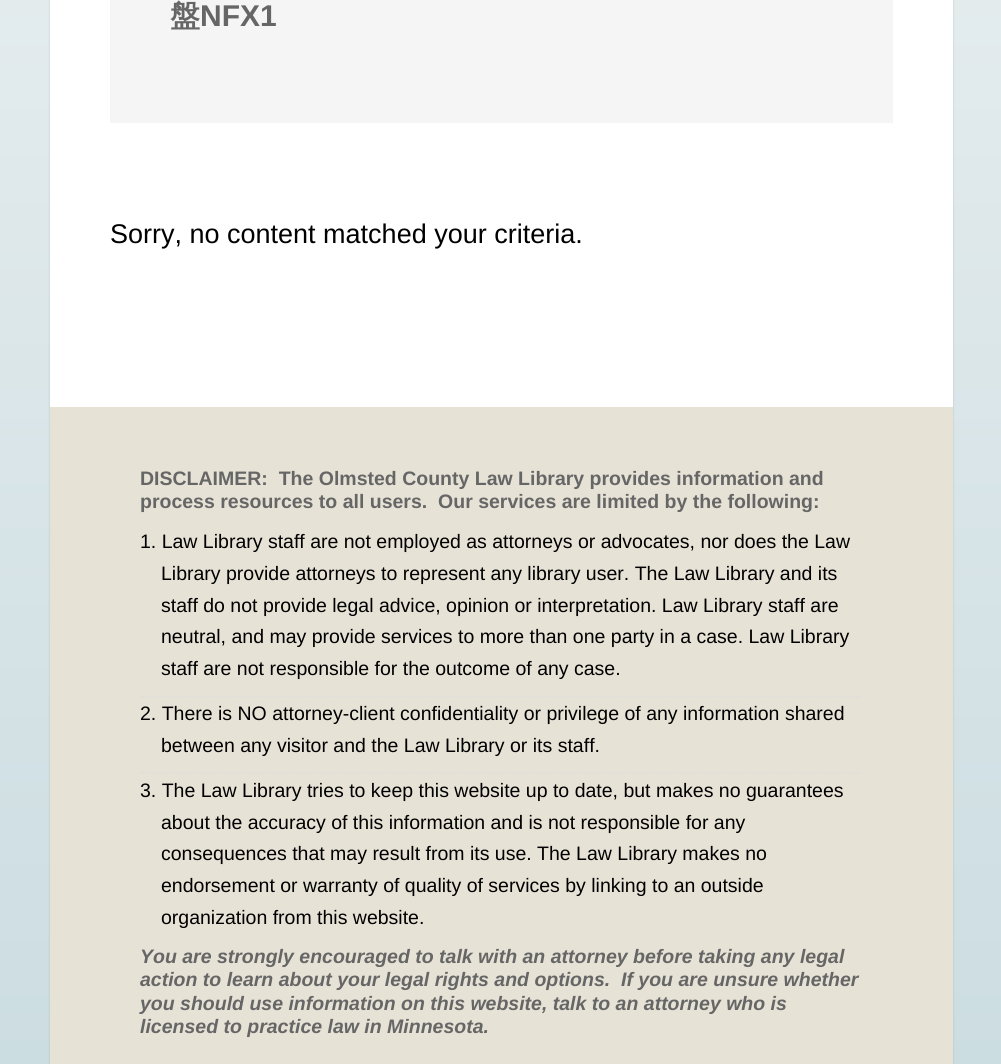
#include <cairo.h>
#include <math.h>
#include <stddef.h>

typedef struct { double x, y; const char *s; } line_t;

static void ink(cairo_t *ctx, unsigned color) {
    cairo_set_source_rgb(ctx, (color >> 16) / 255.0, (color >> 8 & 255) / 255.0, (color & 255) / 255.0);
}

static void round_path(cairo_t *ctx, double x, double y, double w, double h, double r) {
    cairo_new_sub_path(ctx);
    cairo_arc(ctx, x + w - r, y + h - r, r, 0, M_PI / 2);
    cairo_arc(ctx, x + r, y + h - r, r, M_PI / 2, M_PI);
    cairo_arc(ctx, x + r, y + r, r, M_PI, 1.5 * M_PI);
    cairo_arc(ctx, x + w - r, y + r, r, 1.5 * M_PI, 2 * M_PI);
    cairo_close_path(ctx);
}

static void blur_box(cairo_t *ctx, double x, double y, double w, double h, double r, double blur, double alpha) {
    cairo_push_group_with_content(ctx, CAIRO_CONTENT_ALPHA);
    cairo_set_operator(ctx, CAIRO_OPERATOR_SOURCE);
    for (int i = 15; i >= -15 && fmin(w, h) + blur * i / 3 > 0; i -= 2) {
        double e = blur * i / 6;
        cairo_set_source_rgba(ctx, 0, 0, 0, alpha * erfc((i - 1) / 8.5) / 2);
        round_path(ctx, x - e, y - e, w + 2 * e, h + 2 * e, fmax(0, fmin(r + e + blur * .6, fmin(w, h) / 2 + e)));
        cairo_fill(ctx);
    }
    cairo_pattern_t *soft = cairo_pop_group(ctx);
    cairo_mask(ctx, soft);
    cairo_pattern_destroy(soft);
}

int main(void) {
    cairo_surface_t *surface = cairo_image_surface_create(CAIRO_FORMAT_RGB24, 1001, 1064);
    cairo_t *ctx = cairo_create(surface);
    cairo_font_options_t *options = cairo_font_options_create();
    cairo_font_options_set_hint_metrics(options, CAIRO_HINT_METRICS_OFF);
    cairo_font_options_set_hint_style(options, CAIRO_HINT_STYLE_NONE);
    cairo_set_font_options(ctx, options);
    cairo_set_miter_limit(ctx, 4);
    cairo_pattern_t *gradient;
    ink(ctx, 0xFFFFFF);
    cairo_paint(ctx);
    gradient = cairo_pattern_create_linear(501, 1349, 501, -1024);
    cairo_pattern_add_color_stop_rgba(gradient, 0, 0.776, 0.851, 0.871, 1);
    cairo_pattern_add_color_stop_rgba(gradient, 1, 0.976, 0.976, 0.976, 1);
    cairo_set_source(ctx, gradient);
    cairo_pattern_destroy(gradient);
    cairo_rectangle(ctx, 0, 0, 1001, 1064);
    cairo_fill(ctx);
    ink(ctx, 0x000000);
    blur_box(ctx, 50, -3, 903, 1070, 0, 1, 0.15);
    ink(ctx, 0xFFFFFF);
    cairo_rectangle(ctx, 50, 0, 903, 407);
    cairo_fill(ctx);
    ink(ctx, 0xF5F5F5);
    cairo_rectangle(ctx, 110, 0, 783, 123);
    cairo_fill(ctx);
    cairo_select_font_face(ctx, "WenQuanYi Zen Hei", CAIRO_FONT_SLANT_NORMAL, CAIRO_FONT_WEIGHT_BOLD);
    cairo_set_font_size(ctx, 30);
    ink(ctx, 0x666666);
    cairo_move_to(ctx, 170, 26);
    cairo_show_text(ctx, "盤");
    cairo_select_font_face(ctx, "Liberation Sans", CAIRO_FONT_SLANT_NORMAL, CAIRO_FONT_WEIGHT_BOLD);
    cairo_move_to(ctx, 200, 26);
    cairo_show_text(ctx, "NFX1");
    cairo_select_font_face(ctx, "Liberation Sans", CAIRO_FONT_SLANT_NORMAL, CAIRO_FONT_WEIGHT_NORMAL);
    cairo_set_font_size(ctx, 27);
    ink(ctx, 0x000000);
    cairo_move_to(ctx, 110, 243);
    cairo_show_text(ctx, "Sorry, no content matched your criteria.");
    ink(ctx, 0xE7E2D6);
    cairo_rectangle(ctx, 50, 407, 903, 657);
    cairo_fill(ctx);
    cairo_select_font_face(ctx, "Liberation Sans", CAIRO_FONT_SLANT_NORMAL, CAIRO_FONT_WEIGHT_BOLD);
    cairo_set_font_size(ctx, 19.5);
    ink(ctx, 0x666666);
    cairo_move_to(ctx, 140, 485);
    cairo_show_text(ctx, "DISCLAIMER:  The Olmsted County Law Library provides information and");
    cairo_move_to(ctx, 140, 508);
    cairo_show_text(ctx, "process resources to all users.  Our services are limited by the following:");
    cairo_new_path(ctx);
    cairo_move_to(ctx, 139.5, 697);
    cairo_line_to(ctx, 862.5, 697);
    ink(ctx, 0xDDDDDD);
    cairo_set_line_width(ctx, 1.5);
    cairo_set_dash(ctx, (double[]){1.5, 1.5}, 2, 0);
    cairo_stroke(ctx);
    cairo_select_font_face(ctx, "Liberation Sans", CAIRO_FONT_SLANT_NORMAL, CAIRO_FONT_WEIGHT_NORMAL);
    ink(ctx, 0x000000);
    {
        static const line_t items[] = {
            {140, 548, "1. Law Library staff are not employed as attorneys or advocates, nor does the Law"},
            {161, 580, "Library provide attorneys to represent any library user. The Law Library and its"},
            {161, 612, "staff do not provide legal advice, opinion or interpretation. Law Library staff are"},
            {161, 643, "neutral, and may provide services to more than one party in a case. Law Library"},
            {161, 675, "staff are not responsible for the outcome of any case."},
        };
        for (size_t i = 0; i < sizeof items / sizeof *items; i++) {
            cairo_move_to(ctx, items[i].x, items[i].y);
            cairo_show_text(ctx, items[i].s);
        }
    }
    cairo_new_path(ctx);
    cairo_move_to(ctx, 139.5, 773);
    cairo_line_to(ctx, 862.5, 773);
    ink(ctx, 0xDDDDDD);
    cairo_stroke(ctx);
    ink(ctx, 0x000000);
    {
        static const line_t items[] = {
            {140, 720, "2. There is NO attorney-client confidentiality or privilege of any information shared"},
            {161, 752, "between any visitor and the Law Library or its staff."},
            {140, 797, "3. The Law Library tries to keep this website up to date, but makes no guarantees"},
            {161, 829, "about the accuracy of this information and is not responsible for any"},
            {161, 860, "consequences that may result from its use. The Law Library makes no"},
            {161, 892, "endorsement or warranty of quality of services by linking to an outside"},
            {161, 924, "organization from this website."},
        };
        for (size_t i = 0; i < sizeof items / sizeof *items; i++) {
            cairo_move_to(ctx, items[i].x, items[i].y);
            cairo_show_text(ctx, items[i].s);
        }
    }
    cairo_select_font_face(ctx, "Liberation Sans", CAIRO_FONT_SLANT_ITALIC, CAIRO_FONT_WEIGHT_BOLD);
    ink(ctx, 0x666666);
    {
        static const line_t items[] = {
            {140, 963, "You are strongly encouraged to talk with an attorney before taking any legal"},
            {140, 986, "action to learn about your legal rights and options.  If you are unsure whether"},
            {140, 1010, "you should use information on this website, talk to an attorney who is"},
            {140, 1033, "licensed to practice law in Minnesota."},
        };
        for (size_t i = 0; i < sizeof items / sizeof *items; i++) {
            cairo_move_to(ctx, items[i].x, items[i].y);
            cairo_show_text(ctx, items[i].s);
        }
    }
    cairo_surface_write_to_png(surface, "image.png");
    cairo_font_options_destroy(options);
    cairo_destroy(ctx);
    cairo_surface_destroy(surface);
    return 0;
}
